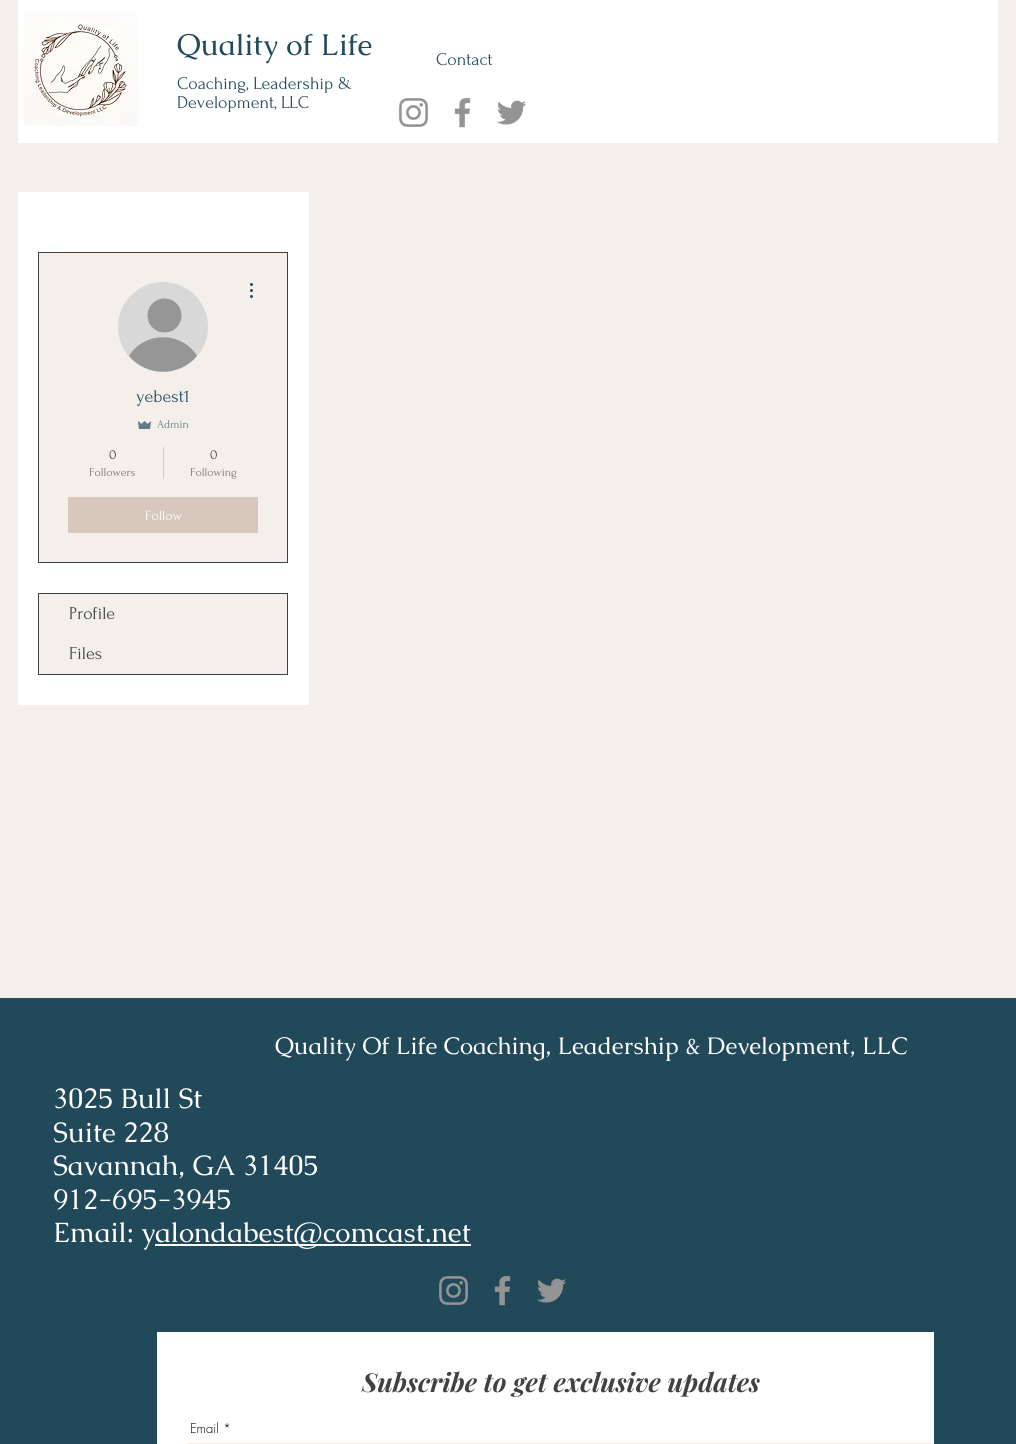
#include <cairo.h>
#include <math.h>
#include <stddef.h>

typedef struct { double x, y; const char *s; } line_t;

static void ink(cairo_t *ctx, unsigned color) {
    cairo_set_source_rgb(ctx, (color >> 16) / 255.0, (color >> 8 & 255) / 255.0, (color & 255) / 255.0);
}

static void paste(cairo_t *ctx, const char *path, double x, double y, double w, double h) {
    cairo_surface_t *image = cairo_image_surface_create_from_png(path);
    cairo_save(ctx);
    cairo_set_source_surface(ctx, image, x, y);
    cairo_rectangle(ctx, x, y, w, h);
    cairo_fill(ctx);
    cairo_restore(ctx);
    cairo_surface_destroy(image);
}

int main(void) {
    cairo_surface_t *surface = cairo_image_surface_create(CAIRO_FORMAT_RGB24, 1016, 1444);
    cairo_t *ctx = cairo_create(surface);
    cairo_font_options_t *options = cairo_font_options_create();
    cairo_font_options_set_hint_metrics(options, CAIRO_HINT_METRICS_OFF);
    cairo_font_options_set_hint_style(options, CAIRO_HINT_STYLE_NONE);
    cairo_set_font_options(ctx, options);
    cairo_set_miter_limit(ctx, 4);
    ink(ctx, 0xF4EFEB);
    cairo_paint(ctx);
    ink(ctx, 0xFFFFFF);
    cairo_rectangle(ctx, 18, 0, 980, 143);
    cairo_fill(ctx);
    paste(ctx, "media/1.png", 24, 12, 114, 114);
    cairo_select_font_face(ctx, "Caudex", CAIRO_FONT_SLANT_NORMAL, CAIRO_FONT_WEIGHT_NORMAL);
    cairo_set_font_size(ctx, 30);
    ink(ctx, 0x22495A);
    cairo_move_to(ctx, 177, 55);
    cairo_show_text(ctx, "Quality of Life");
    cairo_select_font_face(ctx, "Forum", CAIRO_FONT_SLANT_NORMAL, CAIRO_FONT_WEIGHT_NORMAL);
    cairo_set_font_size(ctx, 18);
    {
        static const line_t items[] = {
            {177, 89, "Coaching, Leadership &"},
            {177, 108, "Development, LLC"},
            {436, 65, "Contact"},
        };
        for (size_t i = 0; i < sizeof items / sizeof *items; i++) {
            cairo_move_to(ctx, items[i].x, items[i].y);
            cairo_show_text(ctx, items[i].s);
        }
    }
    paste(ctx, "media/2.png", 399, 98, 29, 29);
    paste(ctx, "media/3.png", 454, 98, 17, 30);
    paste(ctx, "media/4.png", 497, 100, 30, 25);
    ink(ctx, 0xFFFFFF);
    cairo_rectangle(ctx, 18, 192, 291, 513);
    cairo_fill(ctx);
    ink(ctx, 0xF4EFEB);
    cairo_rectangle(ctx, 38.5, 252.5, 249, 310);
    cairo_fill_preserve(ctx);
    ink(ctx, 0x414141);
    cairo_set_line_width(ctx, 1);
    cairo_stroke(ctx);
    ink(ctx, 0xD8D8D8);
    cairo_arc(ctx, 163, 327, 45, 0, 2 * M_PI);
    cairo_fill(ctx);
    ink(ctx, 0x969696);
    cairo_arc(ctx, 164.5, 315.5, 17, 0, 2 * M_PI);
    cairo_fill(ctx);
    cairo_new_path(ctx);
    cairo_move_to(ctx, 197, 356);
    cairo_curve_to(ctx, 179, 377, 147, 377, 129, 356);
    cairo_curve_to(ctx, 144, 331, 182, 331, 197, 356);
    cairo_close_path(ctx);
    cairo_fill(ctx);
    paste(ctx, "media/5.png", 250, 283, 3, 15);
    ink(ctx, 0x22495A);
    cairo_move_to(ctx, 136, 402);
    cairo_show_text(ctx, "yebest1");
    paste(ctx, "media/6.png", 138, 421, 13, 8);
    cairo_set_font_size(ctx, 12);
    ink(ctx, 0x617B86);
    cairo_move_to(ctx, 157, 428);
    cairo_show_text(ctx, "Admin");
    cairo_set_font_size(ctx, 14);
    ink(ctx, 0x414141);
    cairo_move_to(ctx, 109, 459);
    cairo_show_text(ctx, "0");
    cairo_set_font_size(ctx, 12);
    ink(ctx, 0x777574);
    cairo_move_to(ctx, 89, 476);
    cairo_show_text(ctx, "Followers");
    ink(ctx, 0xD0CCC9);
    cairo_rectangle(ctx, 163, 447, 1, 32);
    cairo_fill(ctx);
    cairo_set_font_size(ctx, 14);
    ink(ctx, 0x414141);
    cairo_move_to(ctx, 210, 459);
    cairo_show_text(ctx, "0");
    cairo_set_font_size(ctx, 12);
    ink(ctx, 0x777574);
    cairo_move_to(ctx, 190, 476);
    cairo_show_text(ctx, "Following");
    ink(ctx, 0xD8C7BD);
    cairo_rectangle(ctx, 68, 497, 190, 36);
    cairo_fill(ctx);
    cairo_set_font_size(ctx, 14);
    ink(ctx, 0xFFFFFF);
    cairo_move_to(ctx, 145, 520);
    cairo_show_text(ctx, "Follow");
    cairo_rectangle(ctx, 38.5, 593.5, 249, 81);
    ink(ctx, 0x414141);
    cairo_stroke(ctx);
    ink(ctx, 0xF4EFEB);
    cairo_rectangle(ctx, 39, 594, 248, 80);
    cairo_fill(ctx);
    cairo_set_font_size(ctx, 18);
    ink(ctx, 0x414141);
    cairo_move_to(ctx, 69, 619);
    cairo_show_text(ctx, "Profile");
    cairo_move_to(ctx, 69, 659);
    cairo_show_text(ctx, "Files");
    ink(ctx, 0x22495A);
    cairo_rectangle(ctx, 0, 998, 1016, 446);
    cairo_fill(ctx);
    cairo_select_font_face(ctx, "Caudex", CAIRO_FONT_SLANT_NORMAL, CAIRO_FONT_WEIGHT_NORMAL);
    cairo_set_font_size(ctx, 24);
    ink(ctx, 0xFFFFFF);
    cairo_move_to(ctx, 275, 1054);
    cairo_show_text(ctx, "Quality Of Life Coaching, Leadership & Development, LLC");
    paste(ctx, "media/7.png", 439, 1276, 29, 29);
    paste(ctx, "media/8.png", 494, 1276, 17, 30);
    paste(ctx, "media/9.png", 537, 1278, 30, 25);
    cairo_rectangle(ctx, 157, 1332, 777, 112);
    cairo_fill(ctx);
    cairo_select_font_face(ctx, "Playfair Display", CAIRO_FONT_SLANT_ITALIC, CAIRO_FONT_WEIGHT_BOLD);
    cairo_set_font_size(ctx, 26);
    ink(ctx, 0x414141);
    cairo_move_to(ctx, 362, 1392);
    cairo_show_text(ctx, "Subscribe to get exclusive updates");
    cairo_select_font_face(ctx, "futura Light", CAIRO_FONT_SLANT_NORMAL, CAIRO_FONT_WEIGHT_NORMAL);
    cairo_set_font_size(ctx, 13);
    ink(ctx, 0x000000);
    cairo_move_to(ctx, 190, 1433);
    cairo_show_text(ctx, "Email *");
    ink(ctx, 0xF6EBE4);
    cairo_rectangle(ctx, 188, 1443, 531, 1);
    cairo_fill(ctx);
    cairo_rectangle(ctx, 721.5, 1445.5, 210, 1);
    cairo_set_line_width(ctx, 5);
    cairo_stroke(ctx);
    cairo_select_font_face(ctx, "Caudex", CAIRO_FONT_SLANT_NORMAL, CAIRO_FONT_WEIGHT_NORMAL);
    cairo_set_font_size(ctx, 28);
    ink(ctx, 0xFFFFFF);
    {
        static const line_t items[] = {
            {53, 1108, "3025 Bull St"},
            {53, 1142, "Suite 228"},
            {53, 1175, "Savannah, GA 31405"},
            {53, 1209, "912-695-3945"},
            {53, 1242, "Email: y"},
        };
        for (size_t i = 0; i < sizeof items / sizeof *items; i++) {
            cairo_move_to(ctx, items[i].x, items[i].y);
            cairo_show_text(ctx, items[i].s);
        }
    }
    cairo_rectangle(ctx, 155, 1244, 316, 2);
    cairo_fill(ctx);
    cairo_move_to(ctx, 155, 1242);
    cairo_show_text(ctx, "alondabest@comcast.net");
    cairo_surface_write_to_png(surface, "image.png");
    cairo_font_options_destroy(options);
    cairo_destroy(ctx);
    cairo_surface_destroy(surface);
    return 0;
}
